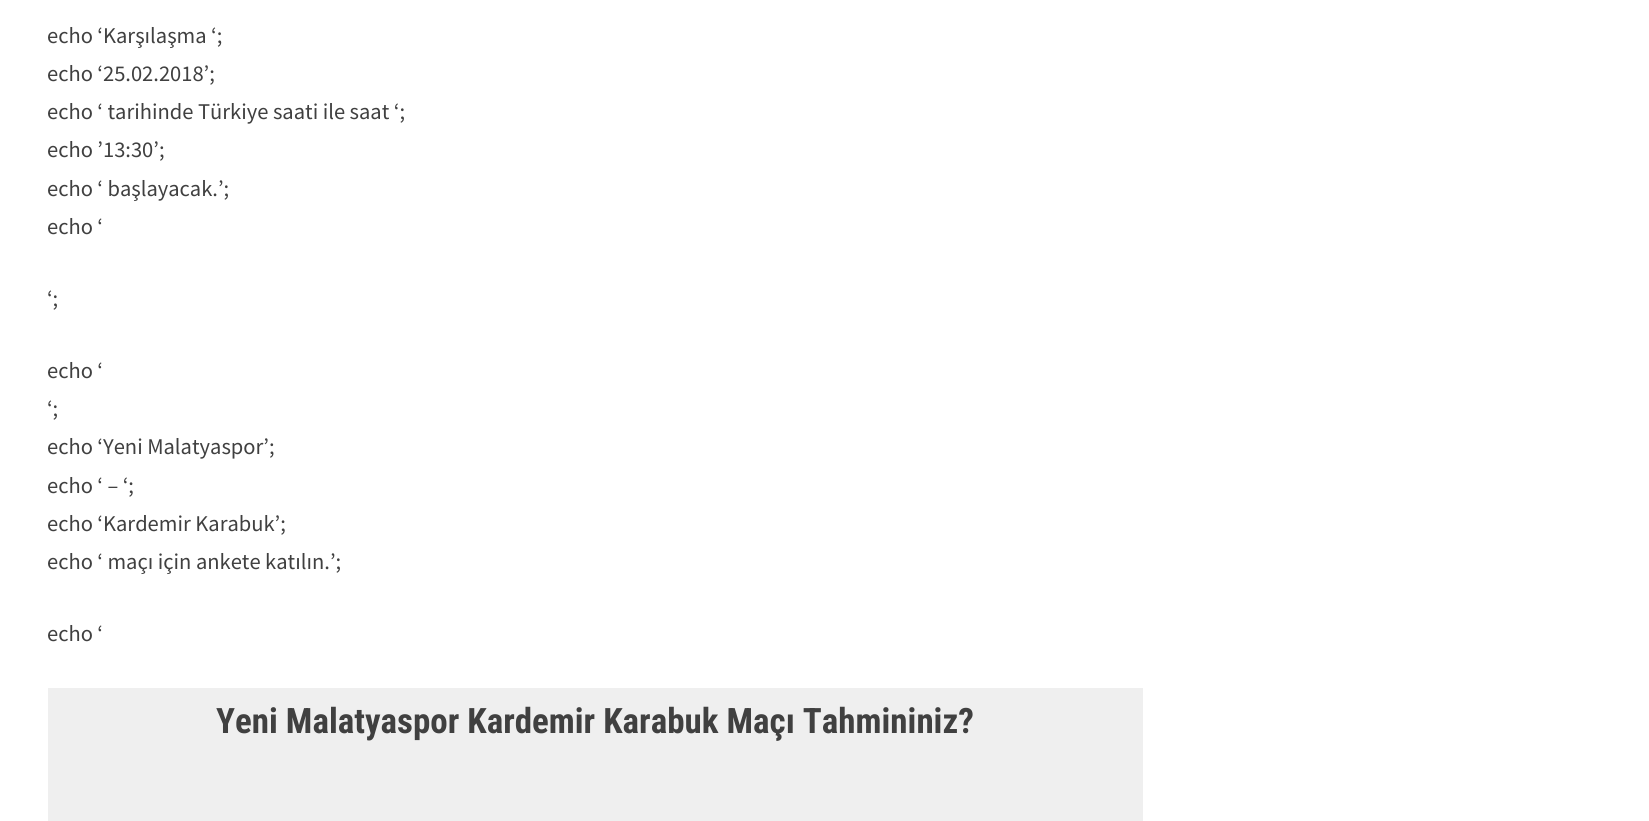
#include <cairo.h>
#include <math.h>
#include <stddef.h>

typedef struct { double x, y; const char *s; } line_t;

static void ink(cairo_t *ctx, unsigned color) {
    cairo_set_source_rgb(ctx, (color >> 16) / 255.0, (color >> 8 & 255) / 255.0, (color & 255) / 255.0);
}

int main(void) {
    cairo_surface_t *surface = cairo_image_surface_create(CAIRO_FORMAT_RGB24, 1649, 821);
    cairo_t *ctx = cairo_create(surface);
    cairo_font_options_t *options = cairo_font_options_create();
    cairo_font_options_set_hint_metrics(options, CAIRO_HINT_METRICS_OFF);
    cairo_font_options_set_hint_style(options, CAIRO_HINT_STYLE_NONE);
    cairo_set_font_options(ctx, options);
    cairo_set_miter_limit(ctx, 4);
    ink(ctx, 0xFFFFFF);
    cairo_paint(ctx);
    cairo_select_font_face(ctx, "Source Sans Pro", CAIRO_FONT_SLANT_NORMAL, CAIRO_FONT_WEIGHT_NORMAL);
    cairo_set_font_size(ctx, 22.5);
    ink(ctx, 0x404040);
    {
        static const line_t items[] = {
            {47, 43, "echo ‘Karşılaşma ‘;"},
            {47, 81, "echo ‘25.02.2018’;"},
            {47, 119, "echo ‘ tarihinde Türkiye saati ile saat ‘;"},
            {47, 157, "echo ’13:30’;"},
            {47, 196, "echo ‘ başlayacak.’;"},
            {47, 234, "echo ‘"},
            {47, 306, "‘;"},
            {47, 378, "echo ‘"},
            {47, 416, "‘;"},
            {47, 454, "echo ‘Yeni Malatyaspor’;"},
            {47, 493, "echo ‘ – ‘;"},
            {47, 531, "echo ‘Kardemir Karabuk’;"},
            {47, 569, "echo ‘ maçı için ankete katılın.’;"},
            {47, 641, "echo ‘"},
        };
        for (size_t i = 0; i < sizeof items / sizeof *items; i++) {
            cairo_move_to(ctx, items[i].x, items[i].y);
            cairo_show_text(ctx, items[i].s);
        }
    }
    ink(ctx, 0xEFEFEF);
    cairo_rectangle(ctx, 48, 688, 1095, 133);
    cairo_fill(ctx);
    cairo_select_font_face(ctx, "Roboto Condensed", CAIRO_FONT_SLANT_NORMAL, CAIRO_FONT_WEIGHT_BOLD);
    cairo_set_font_size(ctx, 35);
    ink(ctx, 0x404040);
    cairo_move_to(ctx, 216, 733);
    cairo_show_text(ctx, "Yeni Malatyaspor Kardemir Karabuk Maçı Tahmininiz?");
    cairo_surface_write_to_png(surface, "image.png");
    cairo_font_options_destroy(options);
    cairo_destroy(ctx);
    cairo_surface_destroy(surface);
    return 0;
}
